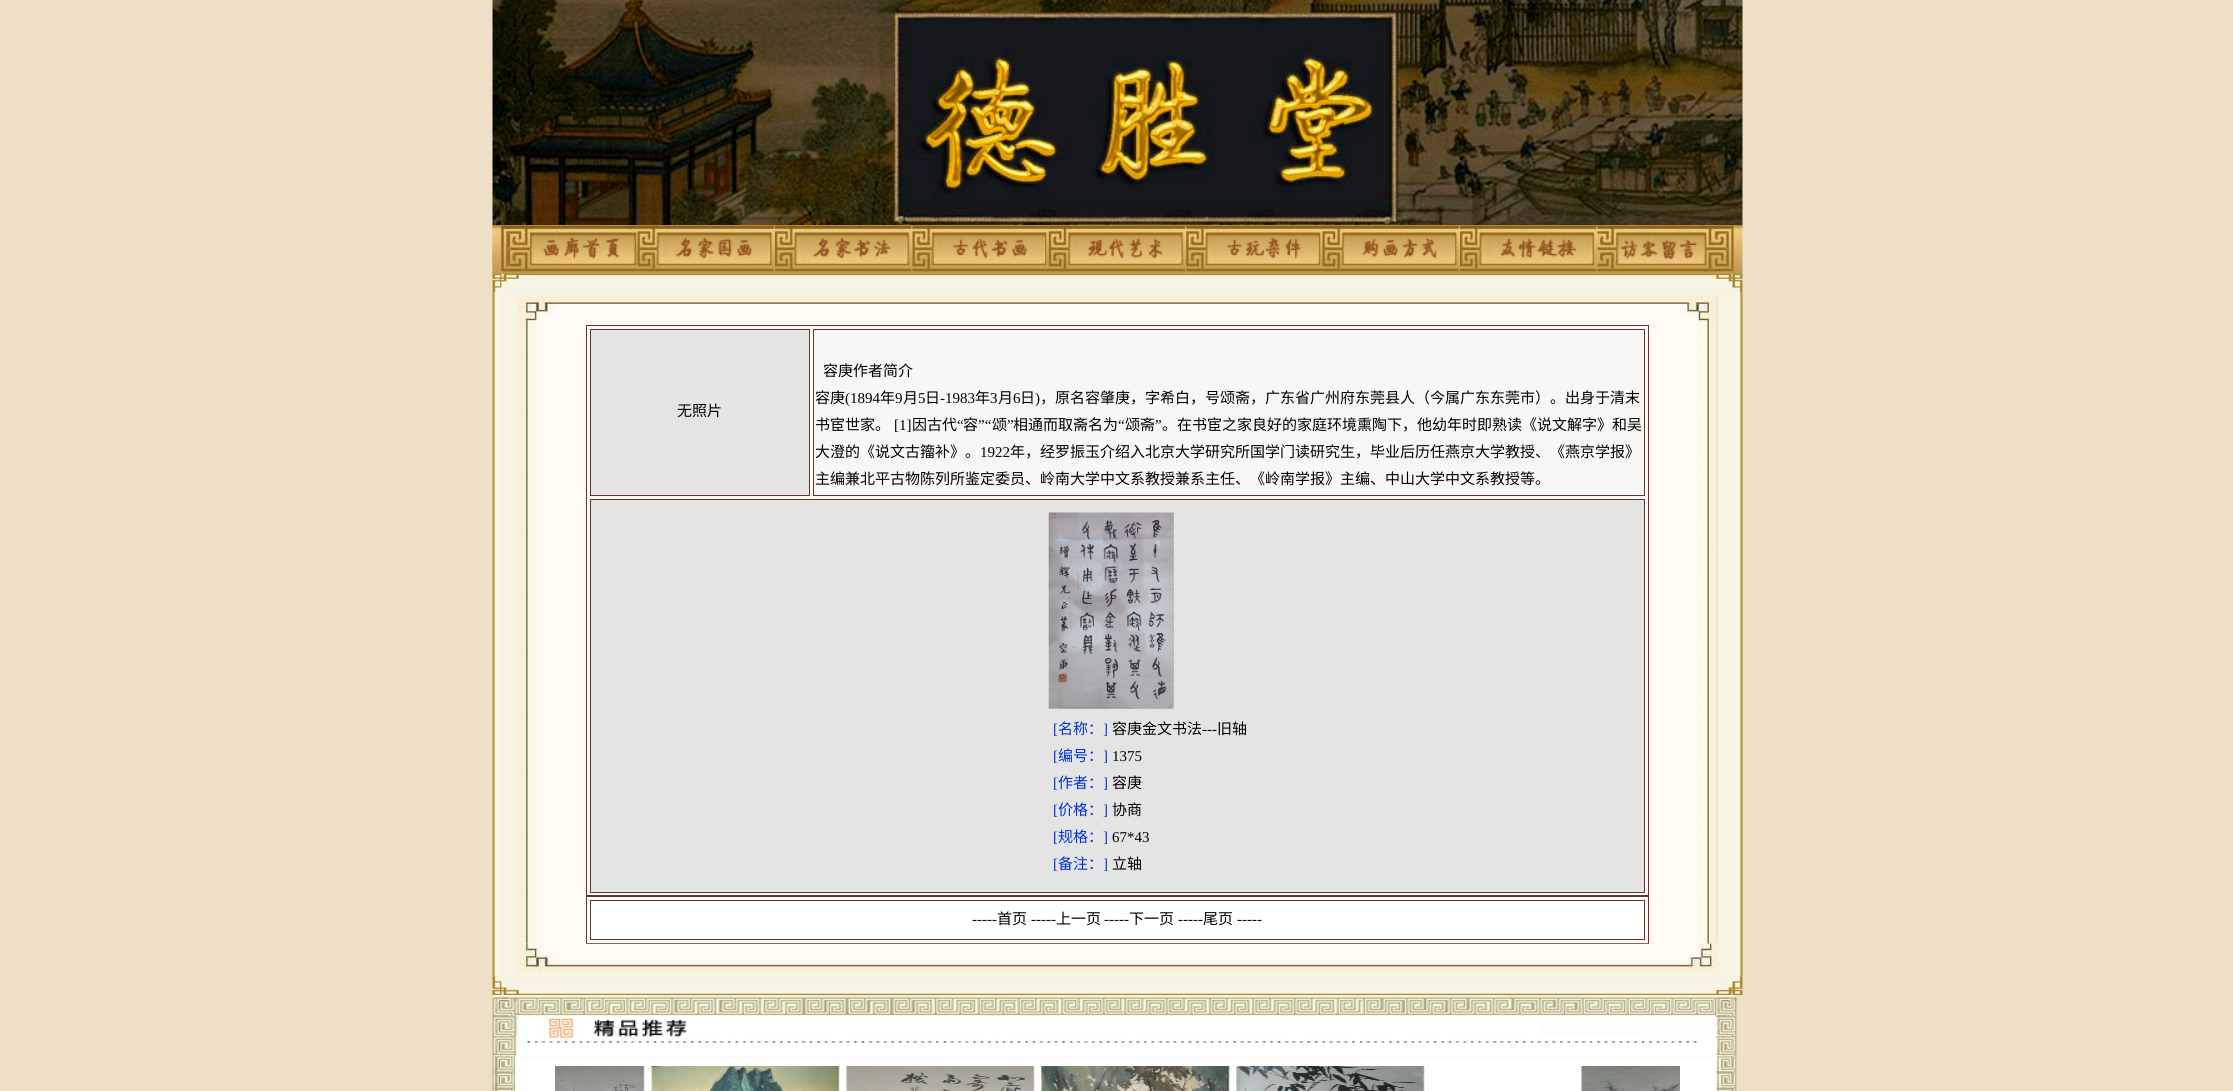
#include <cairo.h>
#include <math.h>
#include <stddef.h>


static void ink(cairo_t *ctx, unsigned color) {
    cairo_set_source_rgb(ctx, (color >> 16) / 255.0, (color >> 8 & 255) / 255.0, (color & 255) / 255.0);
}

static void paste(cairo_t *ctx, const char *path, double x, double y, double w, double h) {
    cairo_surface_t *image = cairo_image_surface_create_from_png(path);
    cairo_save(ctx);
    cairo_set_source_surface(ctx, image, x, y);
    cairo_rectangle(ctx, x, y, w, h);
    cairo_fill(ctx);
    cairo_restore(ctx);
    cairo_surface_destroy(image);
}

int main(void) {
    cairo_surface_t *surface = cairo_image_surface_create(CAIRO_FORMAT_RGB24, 2233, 1091);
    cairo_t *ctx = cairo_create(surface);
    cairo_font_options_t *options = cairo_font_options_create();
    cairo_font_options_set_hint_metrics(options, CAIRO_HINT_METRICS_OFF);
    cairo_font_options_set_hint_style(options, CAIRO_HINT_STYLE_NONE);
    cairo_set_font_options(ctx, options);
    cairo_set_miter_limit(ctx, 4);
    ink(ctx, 0xEEE0C6);
    cairo_paint(ctx);
    paste(ctx, "media/1.png", 492, 0, 1251, 225);
    paste(ctx, "media/2.png", 492, 225, 1251, 49);
    paste(ctx, "media/3.png", 492, 225, 10, 49);
    paste(ctx, "media/4.png", 501, 225, 137, 49);
    paste(ctx, "media/5.png", 637, 225, 137, 49);
    paste(ctx, "media/6.png", 775, 225, 137, 49);
    paste(ctx, "media/7.png", 912, 225, 137, 49);
    paste(ctx, "media/8.png", 1048, 225, 137, 49);
    paste(ctx, "media/9.png", 1186, 225, 137, 49);
    paste(ctx, "media/10.png", 1322, 225, 137, 49);
    paste(ctx, "media/11.png", 1460, 225, 137, 49);
    paste(ctx, "media/12.png", 1597, 225, 137, 49);
    paste(ctx, "media/13.png", 1733, 225, 9, 49);
    paste(ctx, "media/15.png", 492, 292, 1251, 685);
    paste(ctx, "media/14.png", 492, 273, 1251, 20);
    paste(ctx, "media/16.png", 517, 296, 1201, 29);
    paste(ctx, "media/17.png", 517, 325, 1201, 619);
    cairo_rectangle(ctx, 586.5, 325.5, 1062, 570);
    ink(ctx, 0x663333);
    cairo_set_line_width(ctx, 1);
    cairo_stroke(ctx);
    ink(ctx, 0xE4E4E4);
    cairo_rectangle(ctx, 590.5, 329.5, 219, 166);
    cairo_fill_preserve(ctx);
    ink(ctx, 0x663333);
    cairo_stroke(ctx);
    cairo_select_font_face(ctx, "Noto Sans CJK SC", CAIRO_FONT_SLANT_NORMAL, CAIRO_FONT_WEIGHT_NORMAL);
    cairo_set_font_size(ctx, 15);
    ink(ctx, 0x000000);
    cairo_move_to(ctx, 677, 416);
    cairo_show_text(ctx, "无照片");
    ink(ctx, 0xF7F7F7);
    cairo_rectangle(ctx, 813.5, 329.5, 831, 166);
    cairo_fill_preserve(ctx);
    ink(ctx, 0x663333);
    cairo_stroke(ctx);
    ink(ctx, 0x000000);
    cairo_move_to(ctx, 823, 376);
    cairo_show_text(ctx, "容庚作者简介");
    cairo_move_to(ctx, 815, 403);
    cairo_show_text(ctx, "容庚");
    cairo_select_font_face(ctx, "Liberation Serif", CAIRO_FONT_SLANT_NORMAL, CAIRO_FONT_WEIGHT_NORMAL);
    cairo_move_to(ctx, 845, 403);
    cairo_show_text(ctx, "(1894");
    cairo_select_font_face(ctx, "Noto Sans CJK SC", CAIRO_FONT_SLANT_NORMAL, CAIRO_FONT_WEIGHT_NORMAL);
    cairo_move_to(ctx, 880, 403);
    cairo_show_text(ctx, "年");
    cairo_select_font_face(ctx, "Liberation Serif", CAIRO_FONT_SLANT_NORMAL, CAIRO_FONT_WEIGHT_NORMAL);
    cairo_move_to(ctx, 895, 403);
    cairo_show_text(ctx, "9");
    cairo_select_font_face(ctx, "Noto Sans CJK SC", CAIRO_FONT_SLANT_NORMAL, CAIRO_FONT_WEIGHT_NORMAL);
    cairo_move_to(ctx, 903, 403);
    cairo_show_text(ctx, "月");
    cairo_select_font_face(ctx, "Liberation Serif", CAIRO_FONT_SLANT_NORMAL, CAIRO_FONT_WEIGHT_NORMAL);
    cairo_move_to(ctx, 918, 403);
    cairo_show_text(ctx, "5");
    cairo_select_font_face(ctx, "Noto Sans CJK SC", CAIRO_FONT_SLANT_NORMAL, CAIRO_FONT_WEIGHT_NORMAL);
    cairo_move_to(ctx, 925, 403);
    cairo_show_text(ctx, "日");
    cairo_select_font_face(ctx, "Liberation Serif", CAIRO_FONT_SLANT_NORMAL, CAIRO_FONT_WEIGHT_NORMAL);
    cairo_move_to(ctx, 940, 403);
    cairo_show_text(ctx, "-1983");
    cairo_select_font_face(ctx, "Noto Sans CJK SC", CAIRO_FONT_SLANT_NORMAL, CAIRO_FONT_WEIGHT_NORMAL);
    cairo_move_to(ctx, 975, 403);
    cairo_show_text(ctx, "年");
    cairo_select_font_face(ctx, "Liberation Serif", CAIRO_FONT_SLANT_NORMAL, CAIRO_FONT_WEIGHT_NORMAL);
    cairo_move_to(ctx, 990, 403);
    cairo_show_text(ctx, "3");
    cairo_select_font_face(ctx, "Noto Sans CJK SC", CAIRO_FONT_SLANT_NORMAL, CAIRO_FONT_WEIGHT_NORMAL);
    cairo_move_to(ctx, 998, 403);
    cairo_show_text(ctx, "月");
    cairo_select_font_face(ctx, "Liberation Serif", CAIRO_FONT_SLANT_NORMAL, CAIRO_FONT_WEIGHT_NORMAL);
    cairo_move_to(ctx, 1013, 403);
    cairo_show_text(ctx, "6");
    cairo_select_font_face(ctx, "Noto Sans CJK SC", CAIRO_FONT_SLANT_NORMAL, CAIRO_FONT_WEIGHT_NORMAL);
    cairo_move_to(ctx, 1020, 403);
    cairo_show_text(ctx, "日");
    cairo_select_font_face(ctx, "Liberation Serif", CAIRO_FONT_SLANT_NORMAL, CAIRO_FONT_WEIGHT_NORMAL);
    cairo_move_to(ctx, 1035, 403);
    cairo_show_text(ctx, ")");
    cairo_select_font_face(ctx, "Noto Sans CJK SC", CAIRO_FONT_SLANT_NORMAL, CAIRO_FONT_WEIGHT_NORMAL);
    cairo_move_to(ctx, 1040, 403);
    cairo_show_text(ctx, "，原名容肇庚，字希白，号颂斋，广东省广州府东莞县人（今属广东东莞市）。出身于清末");
    cairo_move_to(ctx, 815, 430);
    cairo_show_text(ctx, "书宦世家。");
    cairo_select_font_face(ctx, "Liberation Serif", CAIRO_FONT_SLANT_NORMAL, CAIRO_FONT_WEIGHT_NORMAL);
    cairo_move_to(ctx, 894, 430);
    cairo_show_text(ctx, "[1]");
    cairo_select_font_face(ctx, "Noto Sans CJK SC", CAIRO_FONT_SLANT_NORMAL, CAIRO_FONT_WEIGHT_NORMAL);
    cairo_move_to(ctx, 912, 430);
    cairo_show_text(ctx, "因古代");
    cairo_select_font_face(ctx, "Liberation Serif", CAIRO_FONT_SLANT_NORMAL, CAIRO_FONT_WEIGHT_NORMAL);
    cairo_move_to(ctx, 957, 430);
    cairo_show_text(ctx, "“");
    cairo_select_font_face(ctx, "Noto Sans CJK SC", CAIRO_FONT_SLANT_NORMAL, CAIRO_FONT_WEIGHT_NORMAL);
    cairo_move_to(ctx, 963, 430);
    cairo_show_text(ctx, "容");
    cairo_select_font_face(ctx, "Liberation Serif", CAIRO_FONT_SLANT_NORMAL, CAIRO_FONT_WEIGHT_NORMAL);
    cairo_move_to(ctx, 978, 430);
    cairo_show_text(ctx, "”“");
    cairo_select_font_face(ctx, "Noto Sans CJK SC", CAIRO_FONT_SLANT_NORMAL, CAIRO_FONT_WEIGHT_NORMAL);
    cairo_move_to(ctx, 992, 430);
    cairo_show_text(ctx, "颂");
    cairo_select_font_face(ctx, "Liberation Serif", CAIRO_FONT_SLANT_NORMAL, CAIRO_FONT_WEIGHT_NORMAL);
    cairo_move_to(ctx, 1007, 430);
    cairo_show_text(ctx, "”");
    cairo_select_font_face(ctx, "Noto Sans CJK SC", CAIRO_FONT_SLANT_NORMAL, CAIRO_FONT_WEIGHT_NORMAL);
    cairo_move_to(ctx, 1013, 430);
    cairo_show_text(ctx, "相通而取斋名为");
    cairo_select_font_face(ctx, "Liberation Serif", CAIRO_FONT_SLANT_NORMAL, CAIRO_FONT_WEIGHT_NORMAL);
    cairo_move_to(ctx, 1118, 430);
    cairo_show_text(ctx, "“");
    cairo_select_font_face(ctx, "Noto Sans CJK SC", CAIRO_FONT_SLANT_NORMAL, CAIRO_FONT_WEIGHT_NORMAL);
    cairo_move_to(ctx, 1125, 430);
    cairo_show_text(ctx, "颂斋");
    cairo_select_font_face(ctx, "Liberation Serif", CAIRO_FONT_SLANT_NORMAL, CAIRO_FONT_WEIGHT_NORMAL);
    cairo_move_to(ctx, 1155, 430);
    cairo_show_text(ctx, "”");
    cairo_select_font_face(ctx, "Noto Sans CJK SC", CAIRO_FONT_SLANT_NORMAL, CAIRO_FONT_WEIGHT_NORMAL);
    cairo_move_to(ctx, 1162, 430);
    cairo_show_text(ctx, "。在书宦之家良好的家庭环境熏陶下，他幼年时即熟读《说文解字》和吴");
    cairo_move_to(ctx, 815, 457);
    cairo_show_text(ctx, "大澄的《说文古籀补》。");
    cairo_select_font_face(ctx, "Liberation Serif", CAIRO_FONT_SLANT_NORMAL, CAIRO_FONT_WEIGHT_NORMAL);
    cairo_move_to(ctx, 980, 457);
    cairo_show_text(ctx, "1922");
    cairo_select_font_face(ctx, "Noto Sans CJK SC", CAIRO_FONT_SLANT_NORMAL, CAIRO_FONT_WEIGHT_NORMAL);
    cairo_move_to(ctx, 1010, 457);
    cairo_show_text(ctx, "年，经罗振玉介绍入北京大学研究所国学门读研究生，毕业后历任燕京大学教授、《燕京学报》");
    cairo_move_to(ctx, 815, 484);
    cairo_show_text(ctx, "主编兼北平古物陈列所鉴定委员、岭南大学中文系教授兼系主任、《岭南学报》主编、中山大学中文系教授等。");
    ink(ctx, 0xE4E4E4);
    cairo_rectangle(ctx, 590.5, 499.5, 1054, 393);
    cairo_fill_preserve(ctx);
    ink(ctx, 0x663333);
    cairo_stroke(ctx);
    paste(ctx, "media/18.png", 1048, 512, 126, 197);
    cairo_select_font_face(ctx, "Liberation Serif", CAIRO_FONT_SLANT_NORMAL, CAIRO_FONT_WEIGHT_NORMAL);
    ink(ctx, 0x0033CC);
    cairo_move_to(ctx, 1053, 734);
    cairo_show_text(ctx, "[");
    cairo_select_font_face(ctx, "Noto Sans CJK SC", CAIRO_FONT_SLANT_NORMAL, CAIRO_FONT_WEIGHT_NORMAL);
    cairo_move_to(ctx, 1058, 734);
    cairo_show_text(ctx, "名称：");
    cairo_select_font_face(ctx, "Liberation Serif", CAIRO_FONT_SLANT_NORMAL, CAIRO_FONT_WEIGHT_NORMAL);
    cairo_move_to(ctx, 1103, 734);
    cairo_show_text(ctx, "]");
    cairo_select_font_face(ctx, "Noto Sans CJK SC", CAIRO_FONT_SLANT_NORMAL, CAIRO_FONT_WEIGHT_NORMAL);
    ink(ctx, 0x000000);
    cairo_move_to(ctx, 1112, 734);
    cairo_show_text(ctx, "容庚金文书法");
    cairo_select_font_face(ctx, "Liberation Serif", CAIRO_FONT_SLANT_NORMAL, CAIRO_FONT_WEIGHT_NORMAL);
    cairo_move_to(ctx, 1202, 734);
    cairo_show_text(ctx, "---");
    cairo_select_font_face(ctx, "Noto Sans CJK SC", CAIRO_FONT_SLANT_NORMAL, CAIRO_FONT_WEIGHT_NORMAL);
    cairo_move_to(ctx, 1217, 734);
    cairo_show_text(ctx, "旧轴");
    cairo_select_font_face(ctx, "Liberation Serif", CAIRO_FONT_SLANT_NORMAL, CAIRO_FONT_WEIGHT_NORMAL);
    ink(ctx, 0x0033CC);
    cairo_move_to(ctx, 1053, 761);
    cairo_show_text(ctx, "[");
    cairo_select_font_face(ctx, "Noto Sans CJK SC", CAIRO_FONT_SLANT_NORMAL, CAIRO_FONT_WEIGHT_NORMAL);
    cairo_move_to(ctx, 1058, 761);
    cairo_show_text(ctx, "编号：");
    cairo_select_font_face(ctx, "Liberation Serif", CAIRO_FONT_SLANT_NORMAL, CAIRO_FONT_WEIGHT_NORMAL);
    cairo_move_to(ctx, 1103, 761);
    cairo_show_text(ctx, "]");
    ink(ctx, 0x000000);
    cairo_move_to(ctx, 1112, 761);
    cairo_show_text(ctx, "1375");
    ink(ctx, 0x0033CC);
    cairo_move_to(ctx, 1053, 788);
    cairo_show_text(ctx, "[");
    cairo_select_font_face(ctx, "Noto Sans CJK SC", CAIRO_FONT_SLANT_NORMAL, CAIRO_FONT_WEIGHT_NORMAL);
    cairo_move_to(ctx, 1058, 788);
    cairo_show_text(ctx, "作者：");
    cairo_select_font_face(ctx, "Liberation Serif", CAIRO_FONT_SLANT_NORMAL, CAIRO_FONT_WEIGHT_NORMAL);
    cairo_move_to(ctx, 1103, 788);
    cairo_show_text(ctx, "]");
    cairo_select_font_face(ctx, "Noto Sans CJK SC", CAIRO_FONT_SLANT_NORMAL, CAIRO_FONT_WEIGHT_NORMAL);
    ink(ctx, 0x000000);
    cairo_move_to(ctx, 1112, 788);
    cairo_show_text(ctx, "容庚");
    cairo_select_font_face(ctx, "Liberation Serif", CAIRO_FONT_SLANT_NORMAL, CAIRO_FONT_WEIGHT_NORMAL);
    ink(ctx, 0x0033CC);
    cairo_move_to(ctx, 1053, 815);
    cairo_show_text(ctx, "[");
    cairo_select_font_face(ctx, "Noto Sans CJK SC", CAIRO_FONT_SLANT_NORMAL, CAIRO_FONT_WEIGHT_NORMAL);
    cairo_move_to(ctx, 1058, 815);
    cairo_show_text(ctx, "价格：");
    cairo_select_font_face(ctx, "Liberation Serif", CAIRO_FONT_SLANT_NORMAL, CAIRO_FONT_WEIGHT_NORMAL);
    cairo_move_to(ctx, 1103, 815);
    cairo_show_text(ctx, "]");
    cairo_select_font_face(ctx, "Noto Sans CJK SC", CAIRO_FONT_SLANT_NORMAL, CAIRO_FONT_WEIGHT_NORMAL);
    ink(ctx, 0x000000);
    cairo_move_to(ctx, 1112, 815);
    cairo_show_text(ctx, "协商");
    cairo_select_font_face(ctx, "Liberation Serif", CAIRO_FONT_SLANT_NORMAL, CAIRO_FONT_WEIGHT_NORMAL);
    ink(ctx, 0x0033CC);
    cairo_move_to(ctx, 1053, 842);
    cairo_show_text(ctx, "[");
    cairo_select_font_face(ctx, "Noto Sans CJK SC", CAIRO_FONT_SLANT_NORMAL, CAIRO_FONT_WEIGHT_NORMAL);
    cairo_move_to(ctx, 1058, 842);
    cairo_show_text(ctx, "规格：");
    cairo_select_font_face(ctx, "Liberation Serif", CAIRO_FONT_SLANT_NORMAL, CAIRO_FONT_WEIGHT_NORMAL);
    cairo_move_to(ctx, 1103, 842);
    cairo_show_text(ctx, "]");
    ink(ctx, 0x000000);
    cairo_move_to(ctx, 1112, 842);
    cairo_show_text(ctx, "67*43");
    ink(ctx, 0x0033CC);
    cairo_move_to(ctx, 1053, 869);
    cairo_show_text(ctx, "[");
    cairo_select_font_face(ctx, "Noto Sans CJK SC", CAIRO_FONT_SLANT_NORMAL, CAIRO_FONT_WEIGHT_NORMAL);
    cairo_move_to(ctx, 1058, 869);
    cairo_show_text(ctx, "备注：");
    cairo_select_font_face(ctx, "Liberation Serif", CAIRO_FONT_SLANT_NORMAL, CAIRO_FONT_WEIGHT_NORMAL);
    cairo_move_to(ctx, 1103, 869);
    cairo_show_text(ctx, "]");
    cairo_select_font_face(ctx, "Noto Sans CJK SC", CAIRO_FONT_SLANT_NORMAL, CAIRO_FONT_WEIGHT_NORMAL);
    ink(ctx, 0x000000);
    cairo_move_to(ctx, 1112, 869);
    cairo_show_text(ctx, "立轴");
    cairo_rectangle(ctx, 586.5, 896.5, 1062, 47);
    ink(ctx, 0x663333);
    cairo_stroke(ctx);
    ink(ctx, 0xFFFFFF);
    cairo_rectangle(ctx, 590.5, 900.5, 1054, 39);
    cairo_fill_preserve(ctx);
    ink(ctx, 0x663333);
    cairo_stroke(ctx);
    cairo_select_font_face(ctx, "Liberation Serif", CAIRO_FONT_SLANT_NORMAL, CAIRO_FONT_WEIGHT_NORMAL);
    ink(ctx, 0x000000);
    cairo_move_to(ctx, 972, 924);
    cairo_show_text(ctx, "-----");
    cairo_select_font_face(ctx, "Noto Sans CJK SC", CAIRO_FONT_SLANT_NORMAL, CAIRO_FONT_WEIGHT_NORMAL);
    cairo_move_to(ctx, 997, 924);
    cairo_show_text(ctx, "首页");
    cairo_select_font_face(ctx, "Liberation Serif", CAIRO_FONT_SLANT_NORMAL, CAIRO_FONT_WEIGHT_NORMAL);
    cairo_move_to(ctx, 1031, 924);
    cairo_show_text(ctx, "-----");
    cairo_select_font_face(ctx, "Noto Sans CJK SC", CAIRO_FONT_SLANT_NORMAL, CAIRO_FONT_WEIGHT_NORMAL);
    cairo_move_to(ctx, 1056, 924);
    cairo_show_text(ctx, "上一页");
    cairo_select_font_face(ctx, "Liberation Serif", CAIRO_FONT_SLANT_NORMAL, CAIRO_FONT_WEIGHT_NORMAL);
    cairo_move_to(ctx, 1104, 924);
    cairo_show_text(ctx, "-----");
    cairo_select_font_face(ctx, "Noto Sans CJK SC", CAIRO_FONT_SLANT_NORMAL, CAIRO_FONT_WEIGHT_NORMAL);
    cairo_move_to(ctx, 1129, 924);
    cairo_show_text(ctx, "下一页");
    cairo_select_font_face(ctx, "Liberation Serif", CAIRO_FONT_SLANT_NORMAL, CAIRO_FONT_WEIGHT_NORMAL);
    cairo_move_to(ctx, 1178, 924);
    cairo_show_text(ctx, "-----");
    cairo_select_font_face(ctx, "Noto Sans CJK SC", CAIRO_FONT_SLANT_NORMAL, CAIRO_FONT_WEIGHT_NORMAL);
    cairo_move_to(ctx, 1203, 924);
    cairo_show_text(ctx, "尾页");
    cairo_select_font_face(ctx, "Liberation Serif", CAIRO_FONT_SLANT_NORMAL, CAIRO_FONT_WEIGHT_NORMAL);
    cairo_move_to(ctx, 1237, 924);
    cairo_show_text(ctx, "-----");
    paste(ctx, "media/19.png", 517, 943, 1201, 30);
    paste(ctx, "media/20.png", 492, 976, 1251, 19);
    paste(ctx, "media/22.png", 492, 1056, 1245, 35);
    paste(ctx, "media/21.png", 492, 995, 1246, 62);
    paste(ctx, "media/23.png", 555, 1066, 90, 25);
    paste(ctx, "media/24.png", 651, 1066, 189, 25);
    paste(ctx, "media/25.png", 846, 1066, 189, 25);
    paste(ctx, "media/26.png", 1041, 1066, 189, 25);
    paste(ctx, "media/27.png", 1236, 1066, 189, 25);
    paste(ctx, "media/28.png", 1581, 1066, 99, 25);
    cairo_surface_write_to_png(surface, "image.png");
    cairo_font_options_destroy(options);
    cairo_destroy(ctx);
    cairo_surface_destroy(surface);
    return 0;
}
